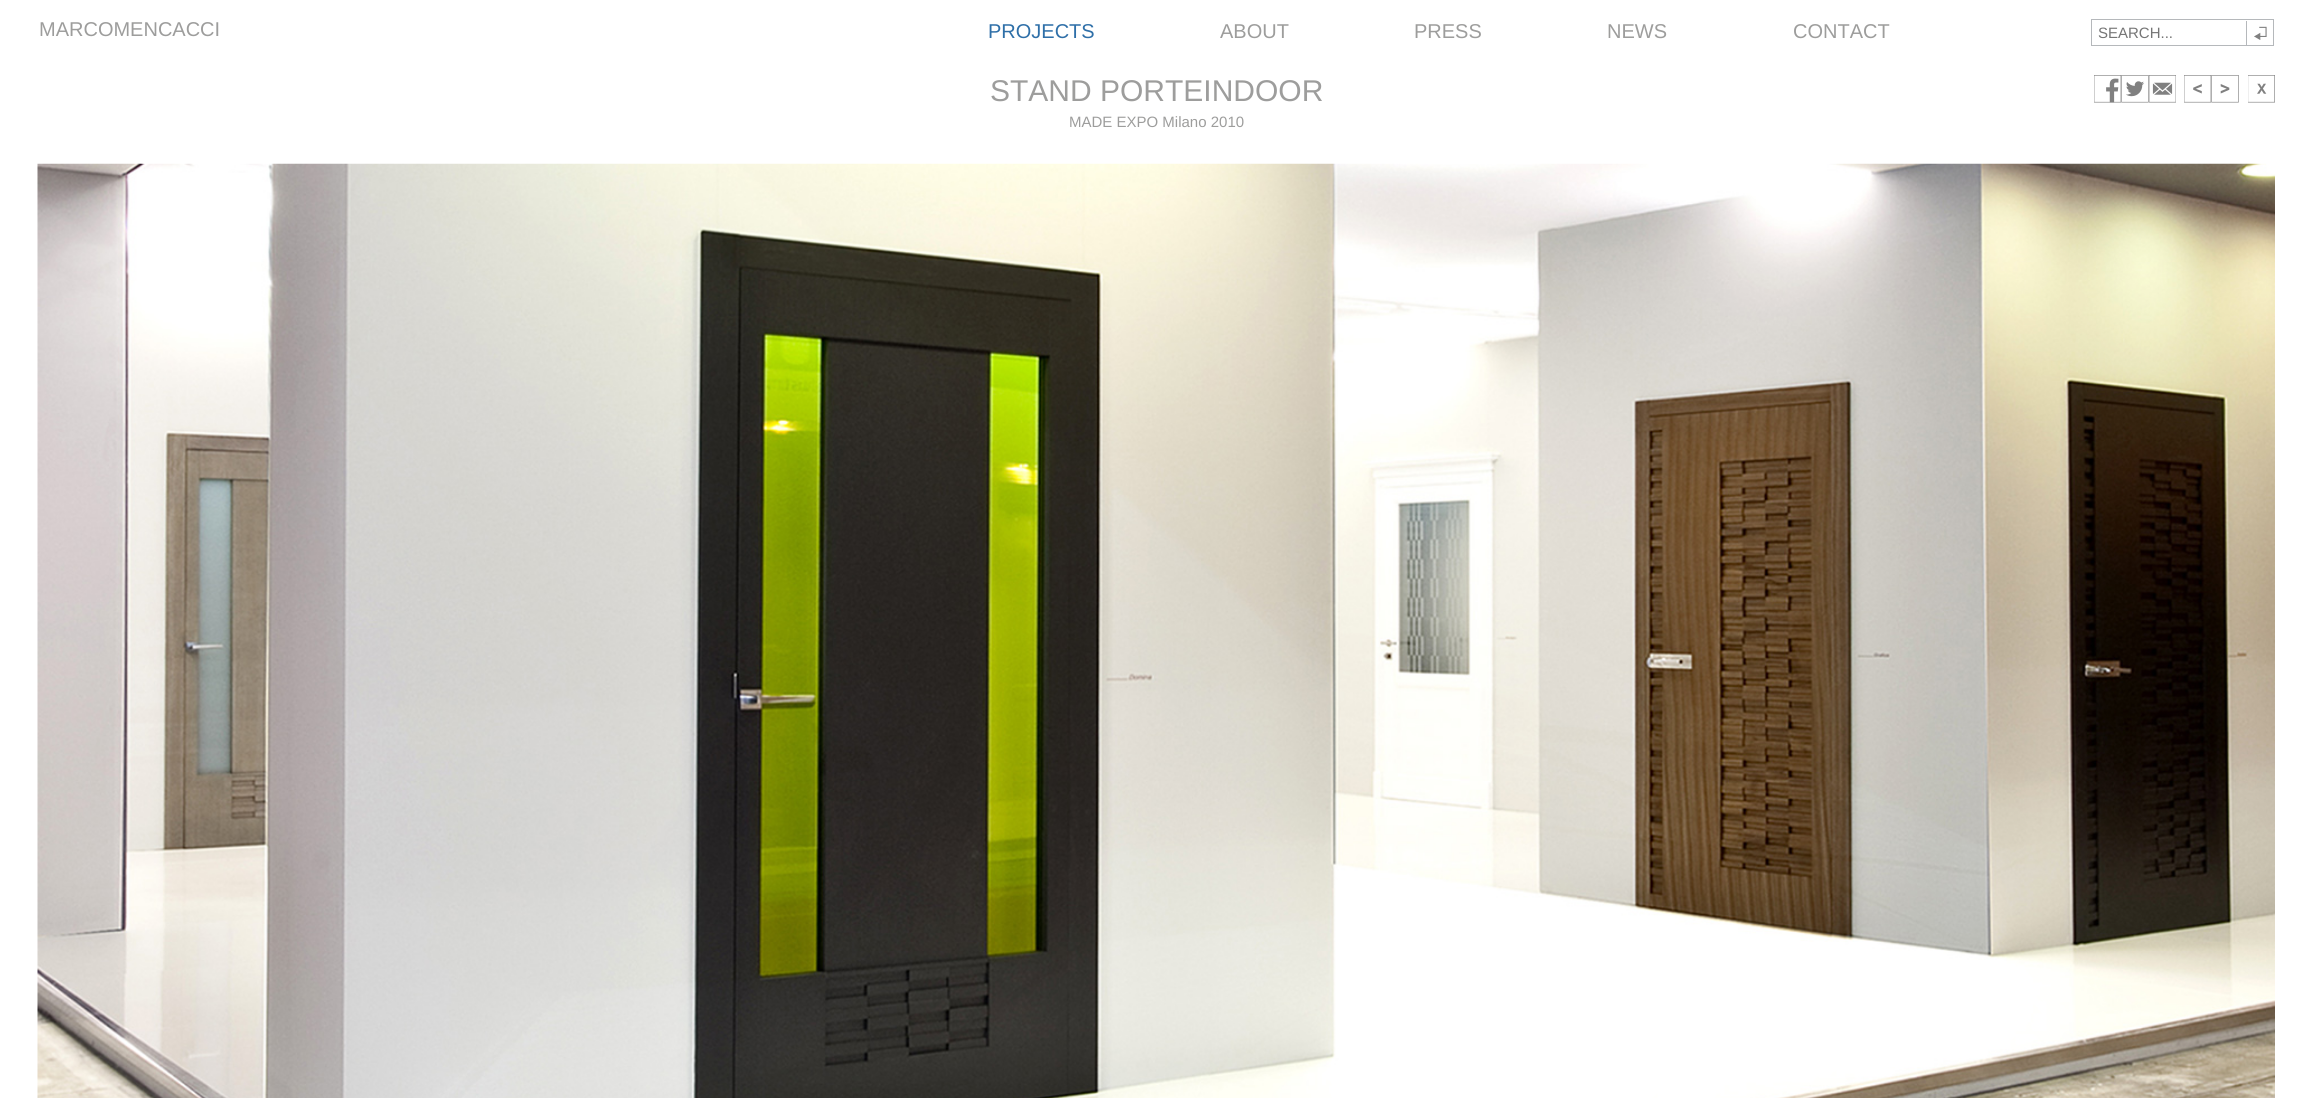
#include <cairo.h>
#include <math.h>
#include <stddef.h>

typedef struct { double x, y; const char *s; } line_t;

static void ink(cairo_t *ctx, unsigned color) {
    cairo_set_source_rgb(ctx, (color >> 16) / 255.0, (color >> 8 & 255) / 255.0, (color & 255) / 255.0);
}

static void paste(cairo_t *ctx, const char *path, double x, double y, double w, double h) {
    cairo_surface_t *image = cairo_image_surface_create_from_png(path);
    cairo_save(ctx);
    cairo_set_source_surface(ctx, image, x, y);
    cairo_rectangle(ctx, x, y, w, h);
    cairo_fill(ctx);
    cairo_restore(ctx);
    cairo_surface_destroy(image);
}

int main(void) {
    cairo_surface_t *surface = cairo_image_surface_create(CAIRO_FORMAT_RGB24, 2312, 1098);
    cairo_t *ctx = cairo_create(surface);
    cairo_font_options_t *options = cairo_font_options_create();
    cairo_font_options_set_hint_metrics(options, CAIRO_HINT_METRICS_OFF);
    cairo_font_options_set_hint_style(options, CAIRO_HINT_STYLE_NONE);
    cairo_set_font_options(ctx, options);
    cairo_set_miter_limit(ctx, 4);
    ink(ctx, 0xFFFFFF);
    cairo_paint(ctx);
    cairo_select_font_face(ctx, "Liberation Sans", CAIRO_FONT_SLANT_NORMAL, CAIRO_FONT_WEIGHT_NORMAL);
    cairo_set_font_size(ctx, 20);
    ink(ctx, 0x9D9D9C);
    cairo_move_to(ctx, 39, 36);
    cairo_show_text(ctx, "MARCOMENCACCI");
    ink(ctx, 0x2E6FA8);
    cairo_move_to(ctx, 988, 38);
    cairo_show_text(ctx, "PROJECTS");
    ink(ctx, 0x9D9D9C);
    {
        static const line_t items[] = {
            {1220, 38, "ABOUT"},
            {1414, 38, "PRESS"},
            {1607, 38, "NEWS"},
            {1793, 38, "CONTACT"},
        };
        for (size_t i = 0; i < sizeof items / sizeof *items; i++) {
            cairo_move_to(ctx, items[i].x, items[i].y);
            cairo_show_text(ctx, items[i].s);
        }
    }
    cairo_rectangle(ctx, 2091.5, 19.5, 182, 26);
    ink(ctx, 0xB5B8BB);
    cairo_set_line_width(ctx, 1);
    cairo_stroke(ctx);
    cairo_set_font_size(ctx, 15);
    ink(ctx, 0x757575);
    cairo_move_to(ctx, 2098, 38);
    cairo_show_text(ctx, "SEARCH...");
    ink(ctx, 0xB5B8BB);
    cairo_rectangle(ctx, 2246, 21, 1, 25);
    cairo_fill(ctx);
    paste(ctx, "media/1.png", 2254, 26, 13, 14);
    cairo_set_font_size(ctx, 30);
    ink(ctx, 0x9D9D9C);
    cairo_move_to(ctx, 990, 101);
    cairo_show_text(ctx, "STAND PORTEINDOOR");
    paste(ctx, "media/2.png", 2094, 75, 27, 28);
    paste(ctx, "media/3.png", 2121, 75, 28, 28);
    paste(ctx, "media/4.png", 2149, 75, 27, 28);
    paste(ctx, "media/5.png", 2184, 75, 27, 28);
    paste(ctx, "media/6.png", 2211, 75, 28, 28);
    paste(ctx, "media/7.png", 2248, 75, 27, 28);
    cairo_set_font_size(ctx, 15);
    cairo_move_to(ctx, 1069, 127);
    cairo_show_text(ctx, "MADE EXPO Milano 2010");
    paste(ctx, "media/8.png", 37, 163, 2238, 935);
    cairo_surface_write_to_png(surface, "image.png");
    cairo_font_options_destroy(options);
    cairo_destroy(ctx);
    cairo_surface_destroy(surface);
    return 0;
}
